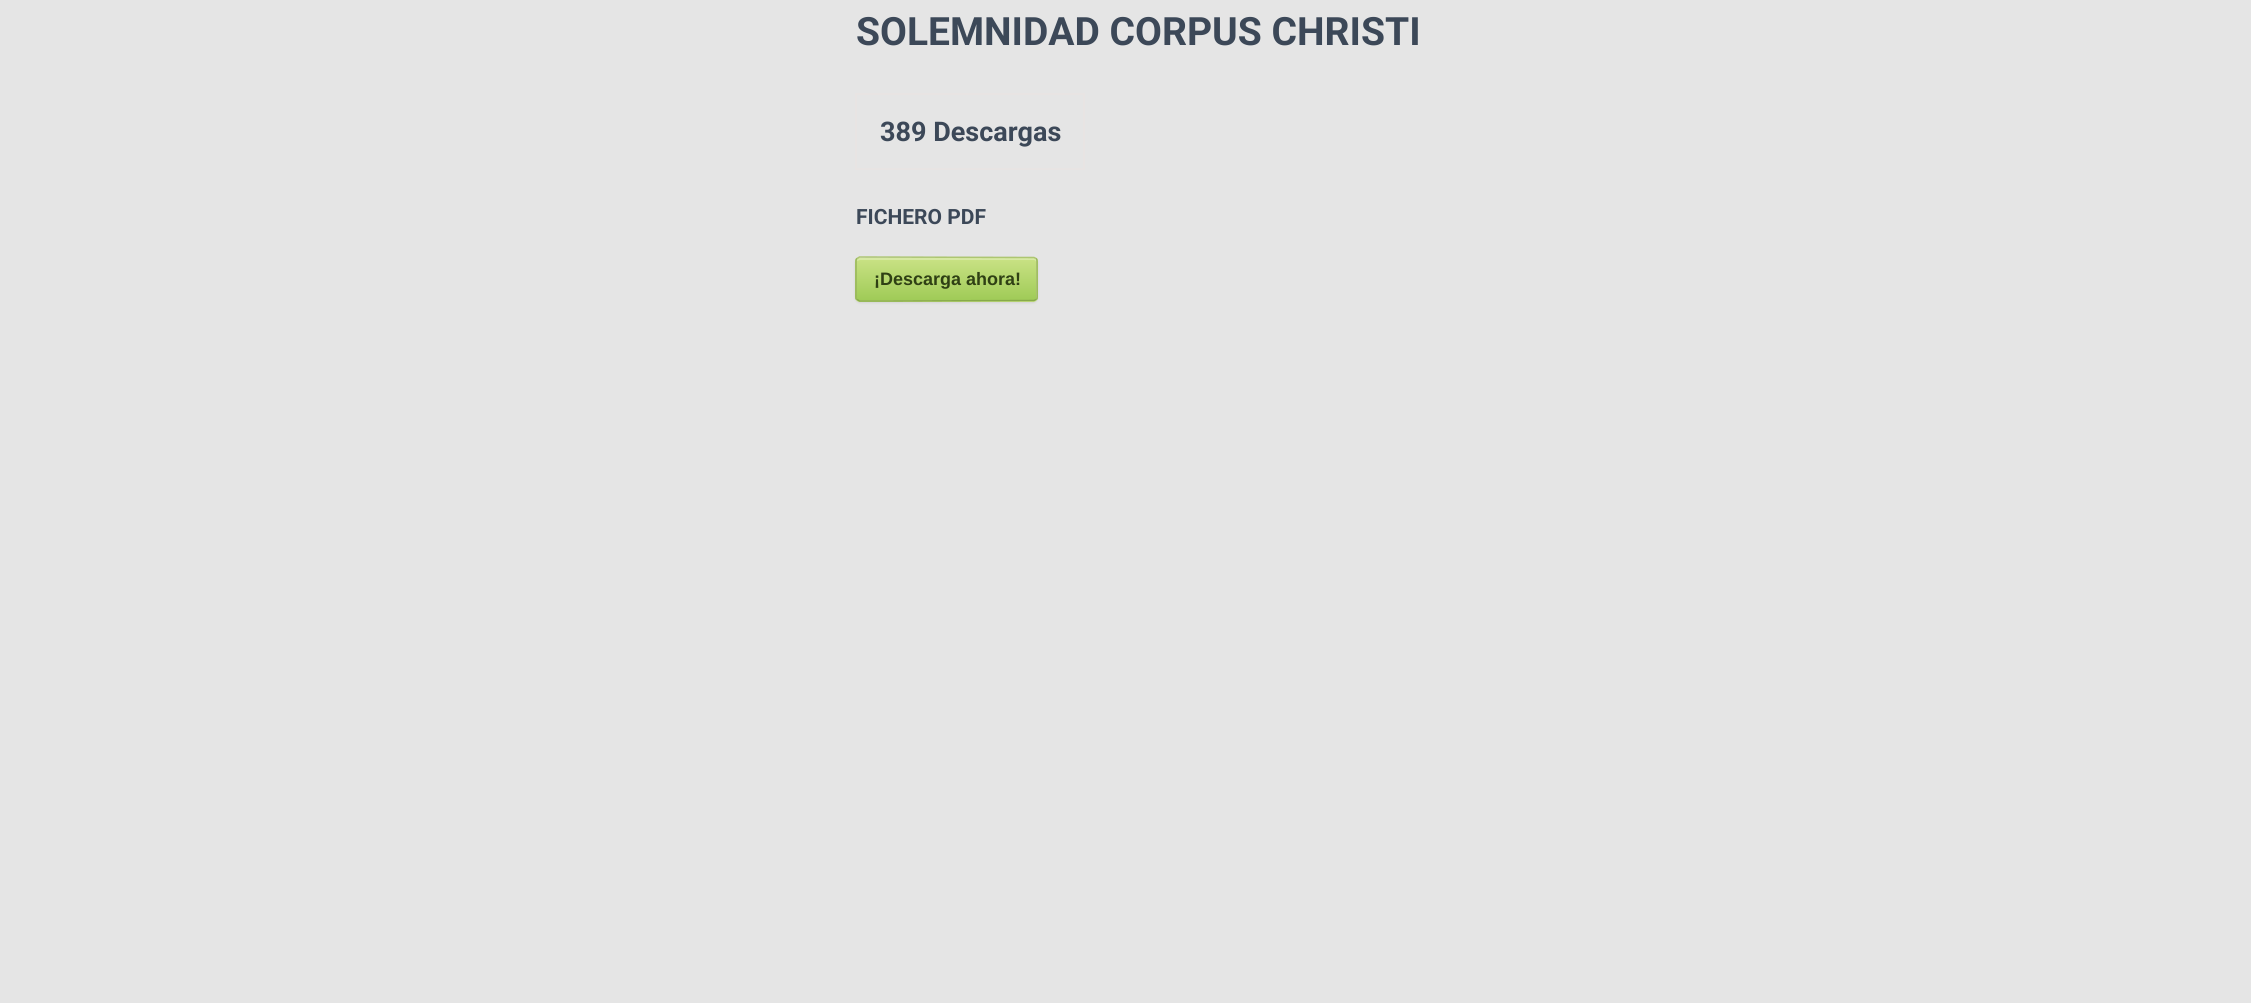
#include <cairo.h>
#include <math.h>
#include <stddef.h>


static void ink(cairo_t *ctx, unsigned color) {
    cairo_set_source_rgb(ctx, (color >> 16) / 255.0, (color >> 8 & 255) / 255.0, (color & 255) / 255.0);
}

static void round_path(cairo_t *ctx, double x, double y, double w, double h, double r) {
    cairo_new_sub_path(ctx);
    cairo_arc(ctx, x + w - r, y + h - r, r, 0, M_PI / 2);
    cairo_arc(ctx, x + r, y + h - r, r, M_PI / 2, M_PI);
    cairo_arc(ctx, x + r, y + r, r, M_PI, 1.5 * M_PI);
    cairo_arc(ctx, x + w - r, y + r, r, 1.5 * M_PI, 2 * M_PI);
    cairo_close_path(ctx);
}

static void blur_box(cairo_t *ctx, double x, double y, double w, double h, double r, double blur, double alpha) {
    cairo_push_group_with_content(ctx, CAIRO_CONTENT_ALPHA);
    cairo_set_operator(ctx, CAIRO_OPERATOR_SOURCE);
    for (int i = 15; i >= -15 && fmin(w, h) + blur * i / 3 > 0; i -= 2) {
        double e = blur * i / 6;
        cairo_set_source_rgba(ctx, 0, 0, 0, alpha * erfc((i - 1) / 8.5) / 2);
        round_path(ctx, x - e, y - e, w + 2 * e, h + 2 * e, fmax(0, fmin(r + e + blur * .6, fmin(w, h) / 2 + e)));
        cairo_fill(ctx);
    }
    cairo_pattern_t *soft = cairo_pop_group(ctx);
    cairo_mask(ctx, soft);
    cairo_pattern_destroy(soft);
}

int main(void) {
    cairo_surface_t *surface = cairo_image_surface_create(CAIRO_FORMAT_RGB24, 2251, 1003);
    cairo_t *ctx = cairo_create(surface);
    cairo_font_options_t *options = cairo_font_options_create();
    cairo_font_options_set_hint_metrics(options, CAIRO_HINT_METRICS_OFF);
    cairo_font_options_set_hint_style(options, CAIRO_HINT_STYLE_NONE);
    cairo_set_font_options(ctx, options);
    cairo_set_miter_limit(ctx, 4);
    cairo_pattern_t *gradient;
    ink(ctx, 0xE5E5E5);
    cairo_paint(ctx);
    cairo_select_font_face(ctx, "Roboto", CAIRO_FONT_SLANT_NORMAL, CAIRO_FONT_WEIGHT_BOLD);
    cairo_set_font_size(ctx, 39);
    ink(ctx, 0x3C4858);
    cairo_move_to(ctx, 856, 45);
    cairo_show_text(ctx, "SOLEMNIDAD CORPUS CHRISTI");
    cairo_rectangle(ctx, 856, 94, 228, 75);
    ink(ctx, 0xE8E4E3);
    cairo_stroke(ctx);
    cairo_set_font_size(ctx, 27);
    ink(ctx, 0x3C4858);
    cairo_move_to(ctx, 880, 141);
    cairo_show_text(ctx, "389 Descargas");
    cairo_set_font_size(ctx, 21);
    cairo_move_to(ctx, 856, 224);
    cairo_show_text(ctx, "FICHERO PDF");
    ink(ctx, 0xD3D3D3);
    blur_box(ctx, 855, 258, 183, 45, 5, 1, 1);
    cairo_save(ctx);
    round_path(ctx, 855, 257, 183, 45, 5);
    cairo_clip(ctx);
    gradient = cairo_pattern_create_linear(857, 258, 857, 300);
    cairo_pattern_add_color_stop_rgba(gradient, 0, 0.792, 0.886, 0.522, 1);
    cairo_pattern_add_color_stop_rgba(gradient, 1, 0.624, 0.796, 0.341, 1);
    cairo_set_source(ctx, gradient);
    cairo_pattern_destroy(gradient);
    cairo_rectangle(ctx, 855, 258, 183, 42);
    cairo_fill(ctx);
    gradient = cairo_pattern_create_linear(857, 300, 857, 342);
    cairo_pattern_add_color_stop_rgba(gradient, 0, 0.792, 0.886, 0.522, 1);
    cairo_pattern_add_color_stop_rgba(gradient, 1, 0.624, 0.796, 0.341, 1);
    cairo_set_source(ctx, gradient);
    cairo_pattern_destroy(gradient);
    cairo_rectangle(ctx, 855, 300, 183, 2);
    cairo_fill(ctx);
    cairo_restore(ctx);
    ink(ctx, 0xD7E9A4);
    cairo_new_path(ctx);
    cairo_move_to(ctx, 860, 260);
    cairo_line_to(ctx, 1034, 260);
    cairo_curve_to(ctx, 1035, 260, 1036, 261, 1036, 262);
    cairo_line_to(ctx, 1036, 299);
    cairo_curve_to(ctx, 1037, 299, 1037, 298, 1037, 297);
    cairo_line_to(ctx, 1037, 261);
    cairo_curve_to(ctx, 1037, 259, 1036, 258, 1034, 258);
    cairo_line_to(ctx, 860, 258);
    cairo_curve_to(ctx, 858, 258, 857, 259, 857, 261);
    cairo_close_path(ctx);
    cairo_fill(ctx);
    cairo_new_path(ctx);
    cairo_move_to(ctx, 857, 258.5);
    cairo_line_to(ctx, 859.5, 257);
    cairo_line_to(ctx, 1034, 257.5);
    cairo_line_to(ctx, 1036, 258.5);
    ink(ctx, 0xADC671);
    cairo_set_line_width(ctx, 1.5);
    cairo_stroke(ctx);
    cairo_new_path(ctx);
    cairo_move_to(ctx, 1036, 258.5);
    cairo_curve_to(ctx, 1037, 259, 1037, 260, 1037, 261);
    cairo_line_to(ctx, 1037, 297);
    cairo_curve_to(ctx, 1037, 298, 1037, 299, 1036, 299.5);
    ink(ctx, 0x98B65B);
    cairo_stroke(ctx);
    cairo_new_path(ctx);
    cairo_move_to(ctx, 1036, 299.5);
    cairo_line_to(ctx, 1034, 300.5);
    cairo_line_to(ctx, 888.5, 301);
    cairo_line_to(ctx, 859.5, 301);
    cairo_line_to(ctx, 857, 299.5);
    ink(ctx, 0x87AA4A);
    cairo_stroke(ctx);
    cairo_new_path(ctx);
    cairo_move_to(ctx, 857, 299.5);
    cairo_curve_to(ctx, 856, 299, 856, 298, 856, 297);
    cairo_line_to(ctx, 856, 261);
    cairo_curve_to(ctx, 856, 260, 856, 259, 857, 258.5);
    ink(ctx, 0x98B65B);
    cairo_stroke(ctx);
    cairo_select_font_face(ctx, "Liberation Sans", CAIRO_FONT_SLANT_NORMAL, CAIRO_FONT_WEIGHT_BOLD);
    cairo_set_font_size(ctx, 18);
    ink(ctx, 0x2F4014);
    cairo_move_to(ctx, 874, 285);
    cairo_show_text(ctx, "¡Descarga ahora!");
    cairo_surface_write_to_png(surface, "image.png");
    cairo_font_options_destroy(options);
    cairo_destroy(ctx);
    cairo_surface_destroy(surface);
    return 0;
}
